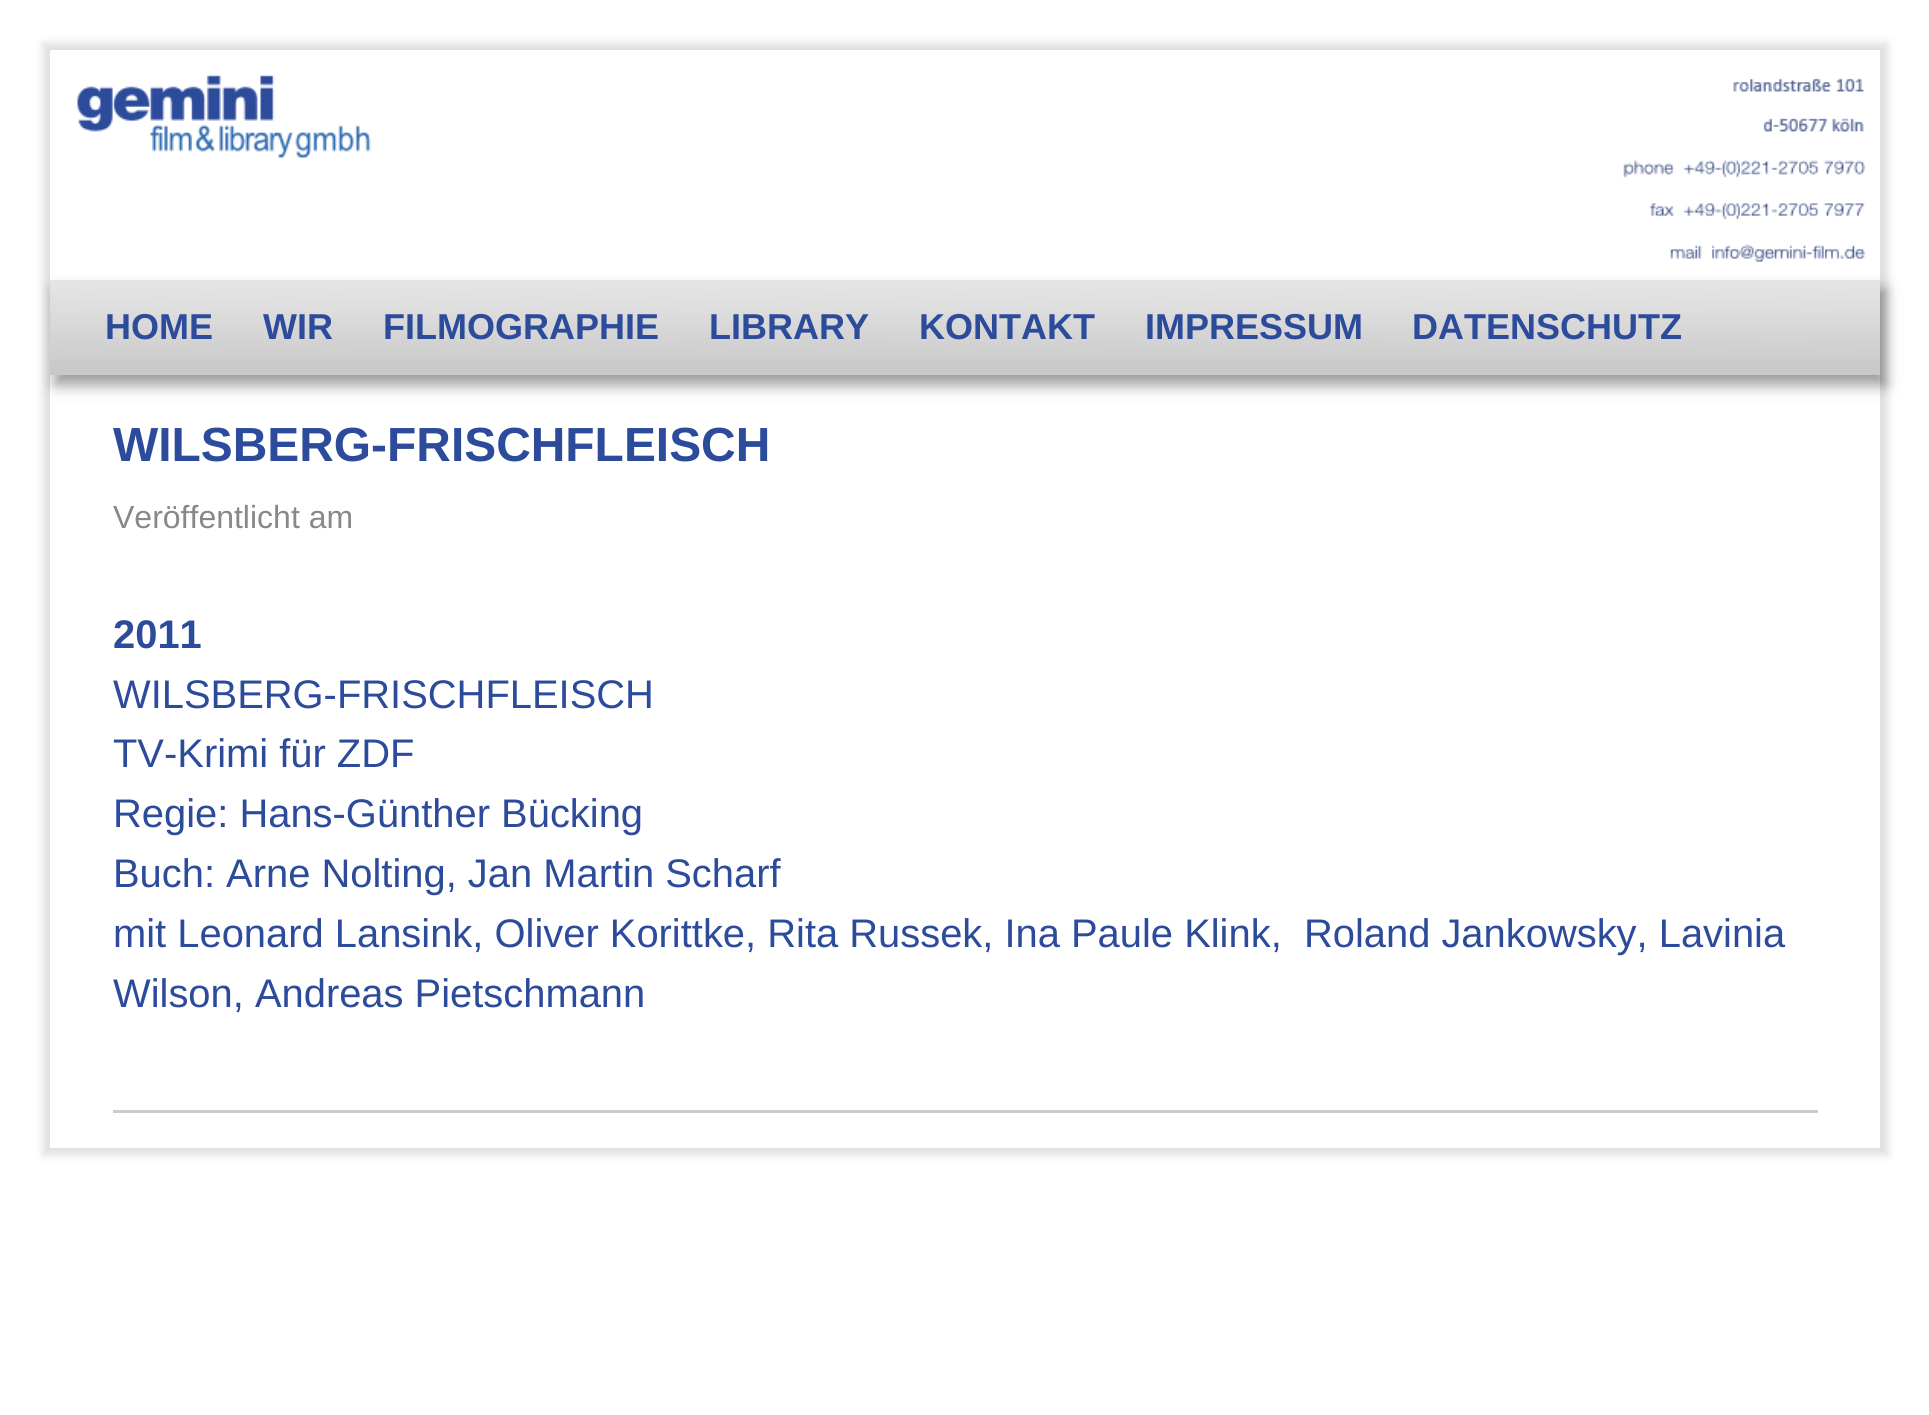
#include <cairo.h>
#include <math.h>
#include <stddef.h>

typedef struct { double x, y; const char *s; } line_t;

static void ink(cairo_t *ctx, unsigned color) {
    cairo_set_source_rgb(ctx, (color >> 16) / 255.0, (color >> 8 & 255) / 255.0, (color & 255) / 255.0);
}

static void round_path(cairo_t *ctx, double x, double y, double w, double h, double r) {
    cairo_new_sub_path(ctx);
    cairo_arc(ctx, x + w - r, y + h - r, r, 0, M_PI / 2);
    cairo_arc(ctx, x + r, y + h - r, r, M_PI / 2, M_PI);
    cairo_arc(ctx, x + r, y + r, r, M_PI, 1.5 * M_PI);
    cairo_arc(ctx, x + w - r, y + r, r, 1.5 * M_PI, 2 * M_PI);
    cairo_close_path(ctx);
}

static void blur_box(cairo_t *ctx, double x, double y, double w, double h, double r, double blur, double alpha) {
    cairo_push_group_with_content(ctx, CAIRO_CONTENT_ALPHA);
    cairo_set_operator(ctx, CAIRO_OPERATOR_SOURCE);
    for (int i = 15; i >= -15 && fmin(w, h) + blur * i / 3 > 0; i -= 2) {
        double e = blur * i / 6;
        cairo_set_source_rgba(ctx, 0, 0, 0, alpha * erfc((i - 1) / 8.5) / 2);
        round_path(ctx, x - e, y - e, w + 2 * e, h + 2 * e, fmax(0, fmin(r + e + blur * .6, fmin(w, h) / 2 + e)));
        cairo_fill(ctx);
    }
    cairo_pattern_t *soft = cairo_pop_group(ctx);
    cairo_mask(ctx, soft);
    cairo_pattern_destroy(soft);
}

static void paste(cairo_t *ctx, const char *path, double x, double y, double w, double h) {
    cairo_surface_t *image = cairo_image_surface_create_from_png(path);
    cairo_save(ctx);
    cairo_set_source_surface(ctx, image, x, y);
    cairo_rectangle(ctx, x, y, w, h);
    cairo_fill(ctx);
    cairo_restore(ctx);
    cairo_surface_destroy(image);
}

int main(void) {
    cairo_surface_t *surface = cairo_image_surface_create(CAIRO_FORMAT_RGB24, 1929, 1415);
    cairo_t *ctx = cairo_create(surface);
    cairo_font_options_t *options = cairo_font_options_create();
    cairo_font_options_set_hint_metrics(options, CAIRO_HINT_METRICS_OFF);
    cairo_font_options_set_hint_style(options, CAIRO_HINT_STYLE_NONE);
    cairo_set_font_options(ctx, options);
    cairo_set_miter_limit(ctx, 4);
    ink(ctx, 0xFFFFFF);
    cairo_paint(ctx);
    ink(ctx, 0x7F7F7F);
    blur_box(ctx, 43, 43, 1845, 1112, 0, 4, 0.25);
    ink(ctx, 0xFFFFFF);
    cairo_rectangle(ctx, 50, 50, 1830, 1098);
    cairo_fill(ctx);
    paste(ctx, "media/1.png", 77, 74, 1789, 188);
    ink(ctx, 0x000000);
    blur_box(ctx, 55, 290, 1830, 95, 0, 7.5, 0.4);
    ink(ctx, 0xC9C9C9);
    cairo_rectangle(ctx, 50, 280, 1830, 95);
    cairo_fill(ctx);
    paste(ctx, "media/2.png", 50, 280, 1830, 80);
    cairo_select_font_face(ctx, "Liberation Sans", CAIRO_FONT_SLANT_NORMAL, CAIRO_FONT_WEIGHT_BOLD);
    cairo_set_font_size(ctx, 36);
    ink(ctx, 0x2D4B9B);
    {
        static const line_t items[] = {
            {105, 339, "HOME"},
            {263, 339, "WIR"},
            {383, 339, "FILMOGRAPHIE"},
            {709, 339, "LIBRARY"},
            {919, 339, "KONTAKT"},
            {1145, 339, "IMPRESSUM"},
            {1412, 339, "DATENSCHUTZ"},
        };
        for (size_t i = 0; i < sizeof items / sizeof *items; i++) {
            cairo_move_to(ctx, items[i].x, items[i].y);
            cairo_show_text(ctx, items[i].s);
        }
    }
    ink(ctx, 0xCCCCCC);
    cairo_rectangle(ctx, 113, 1110, 1705, 3);
    cairo_fill(ctx);
    cairo_set_font_size(ctx, 47.9);
    ink(ctx, 0x2D4B9B);
    cairo_move_to(ctx, 113, 461);
    cairo_show_text(ctx, "WILSBERG-FRISCHFLEISCH");
    cairo_select_font_face(ctx, "Liberation Sans", CAIRO_FONT_SLANT_NORMAL, CAIRO_FONT_WEIGHT_NORMAL);
    cairo_set_font_size(ctx, 32);
    ink(ctx, 0x888888);
    cairo_move_to(ctx, 113, 528);
    cairo_show_text(ctx, "Veröffentlicht am");
    cairo_select_font_face(ctx, "Liberation Sans", CAIRO_FONT_SLANT_NORMAL, CAIRO_FONT_WEIGHT_BOLD);
    cairo_set_font_size(ctx, 39.9);
    ink(ctx, 0x2D4B9B);
    cairo_move_to(ctx, 113, 648);
    cairo_show_text(ctx, "2011");
    cairo_select_font_face(ctx, "Liberation Sans", CAIRO_FONT_SLANT_NORMAL, CAIRO_FONT_WEIGHT_NORMAL);
    {
        static const line_t items[] = {
            {113, 708, "WILSBERG-FRISCHFLEISCH"},
            {113, 767, "TV-Krimi für ZDF"},
            {113, 827, "Regie: Hans-Günther Bücking"},
            {113, 887, "Buch: Arne Nolting, Jan Martin Scharf"},
            {113, 947, "mit Leonard Lansink, Oliver Korittke, Rita Russek, Ina Paule Klink,  Roland Jankowsky, Lavinia"},
            {113, 1007, "Wilson, Andreas Pietschmann"},
        };
        for (size_t i = 0; i < sizeof items / sizeof *items; i++) {
            cairo_move_to(ctx, items[i].x, items[i].y);
            cairo_show_text(ctx, items[i].s);
        }
    }
    cairo_surface_write_to_png(surface, "image.png");
    cairo_font_options_destroy(options);
    cairo_destroy(ctx);
    cairo_surface_destroy(surface);
    return 0;
}
